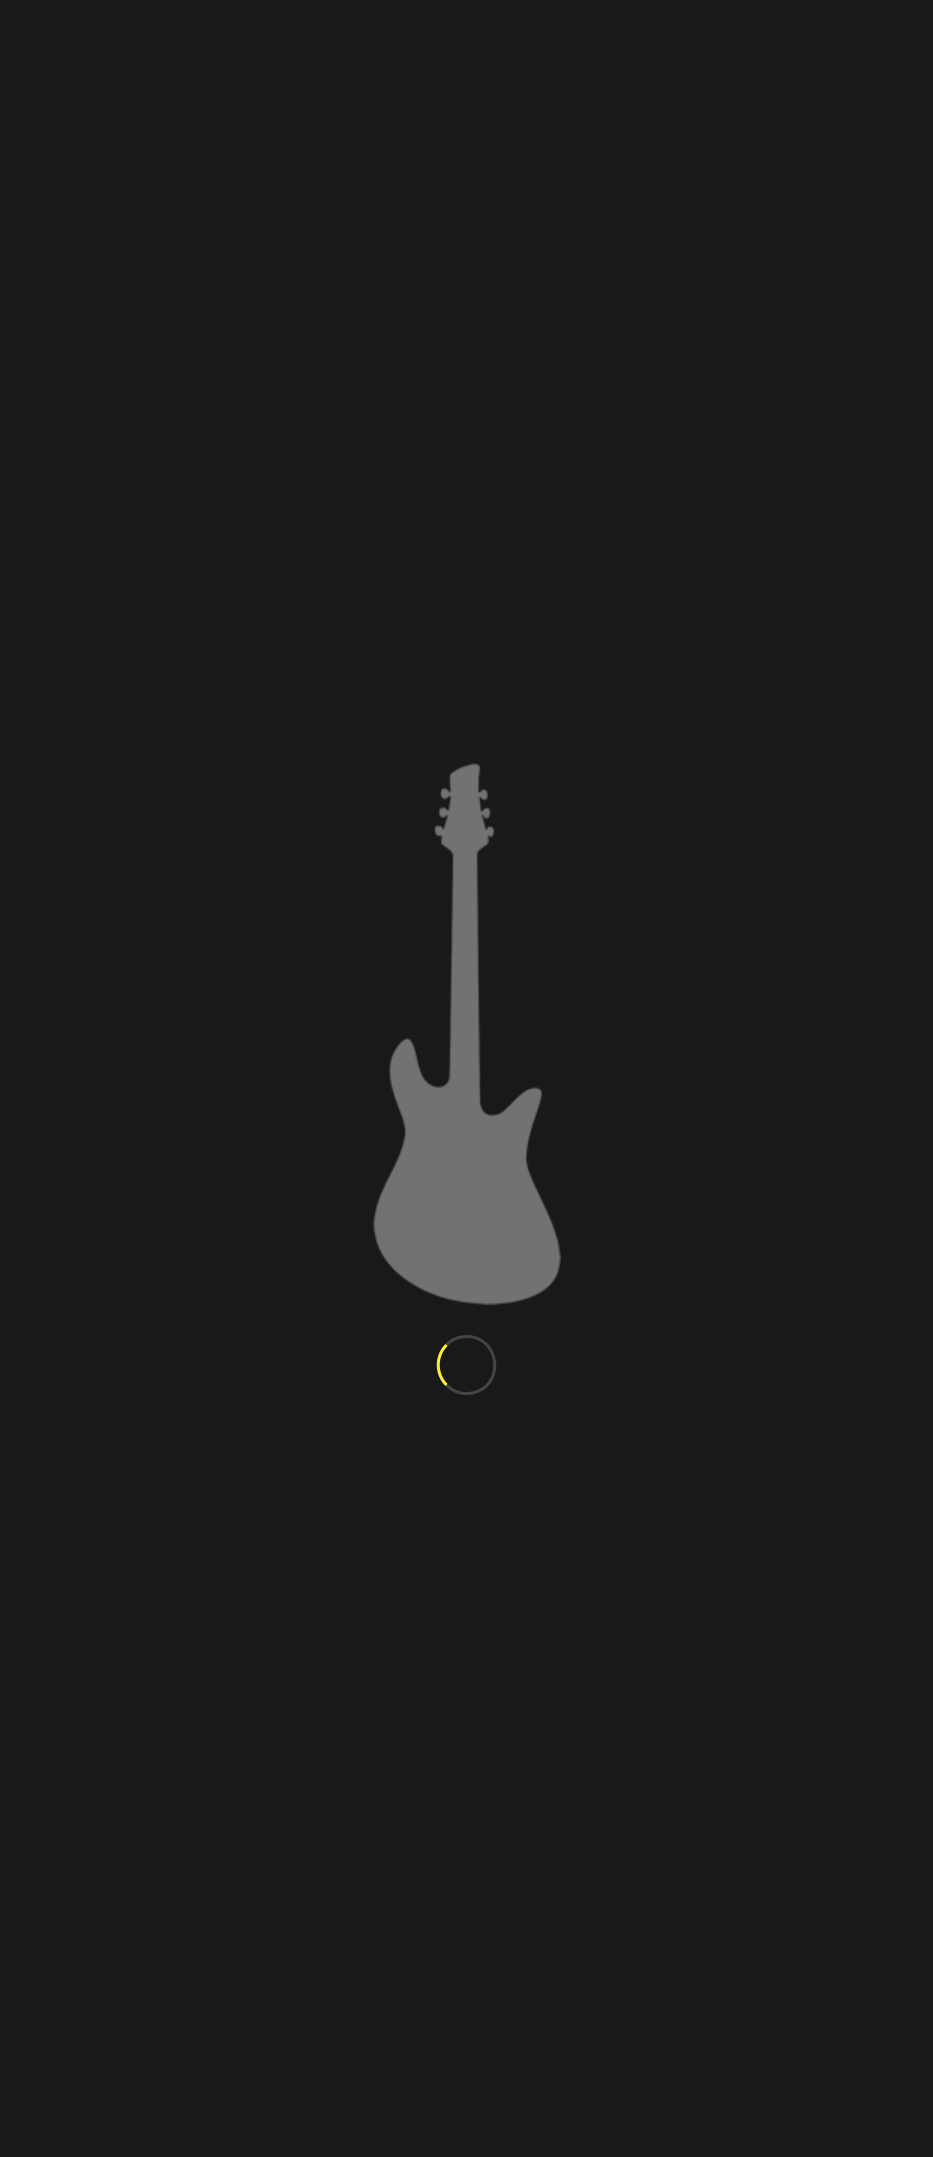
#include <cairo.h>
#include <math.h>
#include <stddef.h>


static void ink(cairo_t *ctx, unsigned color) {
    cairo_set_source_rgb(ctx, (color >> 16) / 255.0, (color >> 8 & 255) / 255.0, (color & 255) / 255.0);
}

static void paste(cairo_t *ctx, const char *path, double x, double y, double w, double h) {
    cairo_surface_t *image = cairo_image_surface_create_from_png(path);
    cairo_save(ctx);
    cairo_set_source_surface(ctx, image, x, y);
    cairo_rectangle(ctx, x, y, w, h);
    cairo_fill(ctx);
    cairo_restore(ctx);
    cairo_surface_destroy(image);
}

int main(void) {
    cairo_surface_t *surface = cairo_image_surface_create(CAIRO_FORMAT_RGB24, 933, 2157);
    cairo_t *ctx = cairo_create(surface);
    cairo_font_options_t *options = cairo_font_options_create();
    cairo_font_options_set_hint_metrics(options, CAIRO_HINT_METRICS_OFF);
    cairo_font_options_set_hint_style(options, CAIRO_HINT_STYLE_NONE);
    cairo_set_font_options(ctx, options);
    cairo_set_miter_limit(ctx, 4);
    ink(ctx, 0x191919);
    cairo_paint(ctx);
    paste(ctx, "media/1.png", 373, 763, 188, 542);
    cairo_new_path(ctx);
    cairo_move_to(ctx, 446.5, 1345);
    cairo_curve_to(ctx, 451.5, 1339.5, 459, 1336.5, 466.5, 1336.5);
    cairo_curve_to(ctx, 500.5, 1336.5, 505.5, 1386.5, 472, 1393);
    cairo_curve_to(ctx, 463, 1395, 453, 1392, 446.5, 1385);
    ink(ctx, 0x444444);
    cairo_set_line_width(ctx, 3);
    cairo_stroke(ctx);
    cairo_new_path(ctx);
    cairo_move_to(ctx, 446.5, 1385);
    cairo_curve_to(ctx, 435.5, 1374, 435.5, 1356, 446.5, 1345);
    ink(ctx, 0xFFEE38);
    cairo_stroke(ctx);
    cairo_surface_write_to_png(surface, "image.png");
    cairo_font_options_destroy(options);
    cairo_destroy(ctx);
    cairo_surface_destroy(surface);
    return 0;
}
